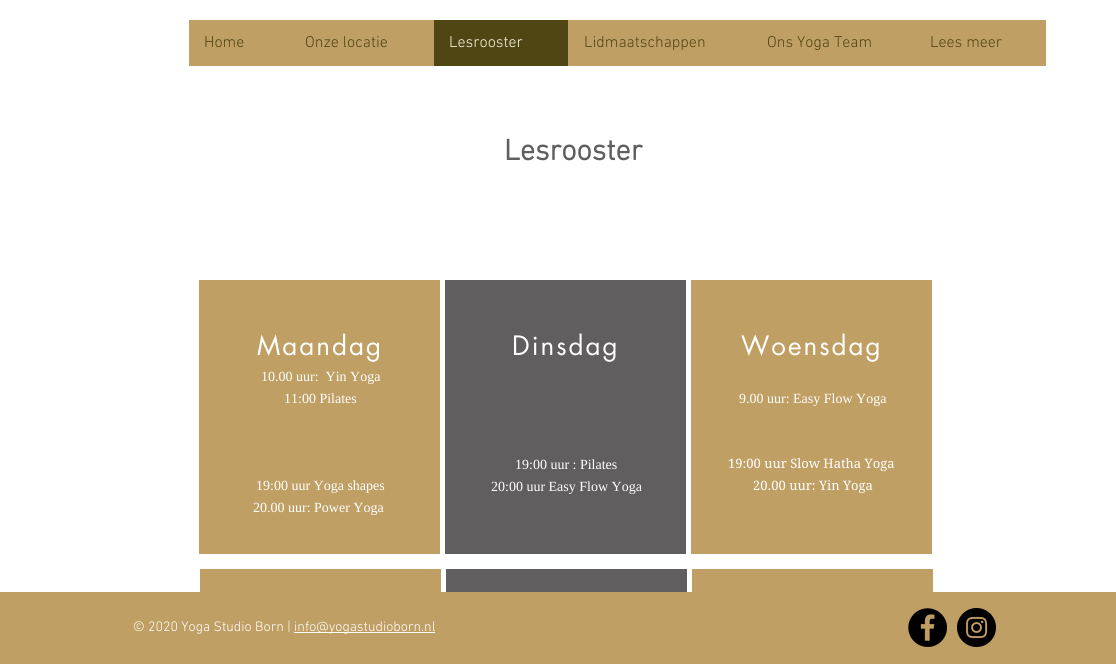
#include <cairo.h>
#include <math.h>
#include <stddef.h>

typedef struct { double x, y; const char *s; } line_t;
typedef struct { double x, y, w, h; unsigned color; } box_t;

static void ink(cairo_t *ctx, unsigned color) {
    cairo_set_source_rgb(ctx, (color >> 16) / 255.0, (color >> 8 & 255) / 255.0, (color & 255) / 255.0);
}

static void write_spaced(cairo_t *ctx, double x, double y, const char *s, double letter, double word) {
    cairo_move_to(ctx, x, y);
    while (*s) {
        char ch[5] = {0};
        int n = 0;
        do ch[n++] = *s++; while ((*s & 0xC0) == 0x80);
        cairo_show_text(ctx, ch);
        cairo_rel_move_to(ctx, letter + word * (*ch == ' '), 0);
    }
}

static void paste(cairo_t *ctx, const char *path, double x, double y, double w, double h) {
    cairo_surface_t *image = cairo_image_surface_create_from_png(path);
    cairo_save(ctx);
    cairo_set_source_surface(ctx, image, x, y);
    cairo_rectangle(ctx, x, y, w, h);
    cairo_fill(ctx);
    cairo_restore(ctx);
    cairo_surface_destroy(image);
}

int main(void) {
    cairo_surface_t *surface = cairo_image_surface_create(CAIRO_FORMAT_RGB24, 1116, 664);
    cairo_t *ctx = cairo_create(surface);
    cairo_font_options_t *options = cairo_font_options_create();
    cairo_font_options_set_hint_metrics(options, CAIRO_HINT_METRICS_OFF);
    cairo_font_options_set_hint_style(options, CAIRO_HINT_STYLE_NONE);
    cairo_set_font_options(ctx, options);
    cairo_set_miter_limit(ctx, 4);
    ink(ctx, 0xFFFFFF);
    cairo_paint(ctx);
    ink(ctx, 0xC09F64);
    cairo_rectangle(ctx, 189, 20, 857, 46);
    cairo_fill(ctx);
    cairo_select_font_face(ctx, "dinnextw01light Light", CAIRO_FONT_SLANT_NORMAL, CAIRO_FONT_WEIGHT_NORMAL);
    cairo_set_font_size(ctx, 16);
    ink(ctx, 0x4F4614);
    cairo_move_to(ctx, 204, 47);
    cairo_show_text(ctx, "Home");
    cairo_move_to(ctx, 305, 47);
    cairo_show_text(ctx, "Onze locatie");
    cairo_rectangle(ctx, 434, 20, 134, 46);
    cairo_fill(ctx);
    ink(ctx, 0xF7F5E1);
    cairo_move_to(ctx, 449, 47);
    cairo_show_text(ctx, "Lesrooster");
    ink(ctx, 0x4F4614);
    {
        static const line_t items[] = {
            {584, 47, "Lidmaatschappen"},
            {767, 47, "Ons Yoga Team"},
            {930, 47, "Lees meer"},
        };
        for (size_t i = 0; i < sizeof items / sizeof *items; i++) {
            cairo_move_to(ctx, items[i].x, items[i].y);
            cairo_show_text(ctx, items[i].s);
        }
    }
    cairo_select_font_face(ctx, "dinnextw01light", CAIRO_FONT_SLANT_NORMAL, CAIRO_FONT_WEIGHT_BOLD);
    cairo_set_font_size(ctx, 30);
    ink(ctx, 0x605E5E);
    cairo_move_to(ctx, 504, 160);
    cairo_show_text(ctx, "Lesrooster");
    ink(ctx, 0xC09F64);
    cairo_rectangle(ctx, 199, 280, 241, 274);
    cairo_fill(ctx);
    cairo_select_font_face(ctx, "futura", CAIRO_FONT_SLANT_NORMAL, CAIRO_FONT_WEIGHT_NORMAL);
    cairo_set_font_size(ctx, 26);
    ink(ctx, 0xFFFFFF);
    write_spaced(ctx, 257, 355, "Maandag", 2, 0);
    cairo_select_font_face(ctx, "Liberation Serif", CAIRO_FONT_SLANT_NORMAL, CAIRO_FONT_WEIGHT_NORMAL);
    cairo_set_font_size(ctx, 14);
    {
        static const line_t items[] = {
            {261, 381, "10.00 uur:  Yin Yoga"},
            {284, 403, "11:00 Pilates"},
            {256, 490, "19:00 uur Yoga shapes"},
            {253, 512, "20.00 uur: Power Yoga"},
        };
        for (size_t i = 0; i < sizeof items / sizeof *items; i++) {
            cairo_move_to(ctx, items[i].x, items[i].y);
            cairo_show_text(ctx, items[i].s);
        }
    }
    ink(ctx, 0x605E5E);
    cairo_rectangle(ctx, 445, 280, 241, 274);
    cairo_fill(ctx);
    cairo_select_font_face(ctx, "futura", CAIRO_FONT_SLANT_NORMAL, CAIRO_FONT_WEIGHT_NORMAL);
    cairo_set_font_size(ctx, 26);
    ink(ctx, 0xFFFFFF);
    write_spaced(ctx, 512, 355, "Dinsdag", 2, 0);
    cairo_select_font_face(ctx, "Liberation Serif", CAIRO_FONT_SLANT_NORMAL, CAIRO_FONT_WEIGHT_NORMAL);
    cairo_set_font_size(ctx, 14);
    cairo_move_to(ctx, 515, 469);
    cairo_show_text(ctx, "19:00 uur : Pilates");
    cairo_move_to(ctx, 491, 491);
    cairo_show_text(ctx, "20:00 uur Easy Flow Yoga");
    ink(ctx, 0xC09F64);
    cairo_rectangle(ctx, 691, 280, 241, 274);
    cairo_fill(ctx);
    cairo_select_font_face(ctx, "futura", CAIRO_FONT_SLANT_NORMAL, CAIRO_FONT_WEIGHT_NORMAL);
    cairo_set_font_size(ctx, 26);
    ink(ctx, 0xFFFFFF);
    write_spaced(ctx, 741, 355, "Woensdag", 2, 0);
    cairo_select_font_face(ctx, "Liberation Serif", CAIRO_FONT_SLANT_NORMAL, CAIRO_FONT_WEIGHT_NORMAL);
    cairo_set_font_size(ctx, 14);
    cairo_move_to(ctx, 739, 403);
    cairo_show_text(ctx, "9.00 uur: Easy Flow Yoga");
    cairo_select_font_face(ctx, "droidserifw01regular", CAIRO_FONT_SLANT_NORMAL, CAIRO_FONT_WEIGHT_NORMAL);
    cairo_set_font_size(ctx, 13);
    cairo_move_to(ctx, 728, 468);
    cairo_show_text(ctx, "19:00 uur Slow Hatha Yoga");
    cairo_move_to(ctx, 753, 490);
    cairo_show_text(ctx, "20.00 uur: Yin Yoga");
    {
        static const box_t items[] = {
            {200, 569, 241, 23, 0xC09F64},
            {446, 569, 241, 23, 0x605E5E},
            {692, 569, 241, 23, 0xC09F64},
            {0, 592, 1116, 72, 0xC09F64},
        };
        for (size_t i = 0; i < sizeof items / sizeof *items; i++) {
            ink(ctx, items[i].color);
            cairo_rectangle(ctx, items[i].x, items[i].y, items[i].w, items[i].h);
            cairo_fill(ctx);
        }
    }
    cairo_select_font_face(ctx, "dinnextw01light Light", CAIRO_FONT_SLANT_NORMAL, CAIRO_FONT_WEIGHT_NORMAL);
    cairo_set_font_size(ctx, 14);
    ink(ctx, 0xFFFFFF);
    cairo_move_to(ctx, 133, 631);
    cairo_show_text(ctx, "© 2020 Yoga Studio Born |");
    cairo_rectangle(ctx, 294, 632, 141, 1);
    cairo_fill(ctx);
    cairo_move_to(ctx, 294, 631);
    cairo_show_text(ctx, "info@yogastudioborn.nl");
    paste(ctx, "media/1.png", 908, 608, 39, 39);
    paste(ctx, "media/2.png", 957, 608, 39, 39);
    cairo_surface_write_to_png(surface, "image.png");
    cairo_font_options_destroy(options);
    cairo_destroy(ctx);
    cairo_surface_destroy(surface);
    return 0;
}
